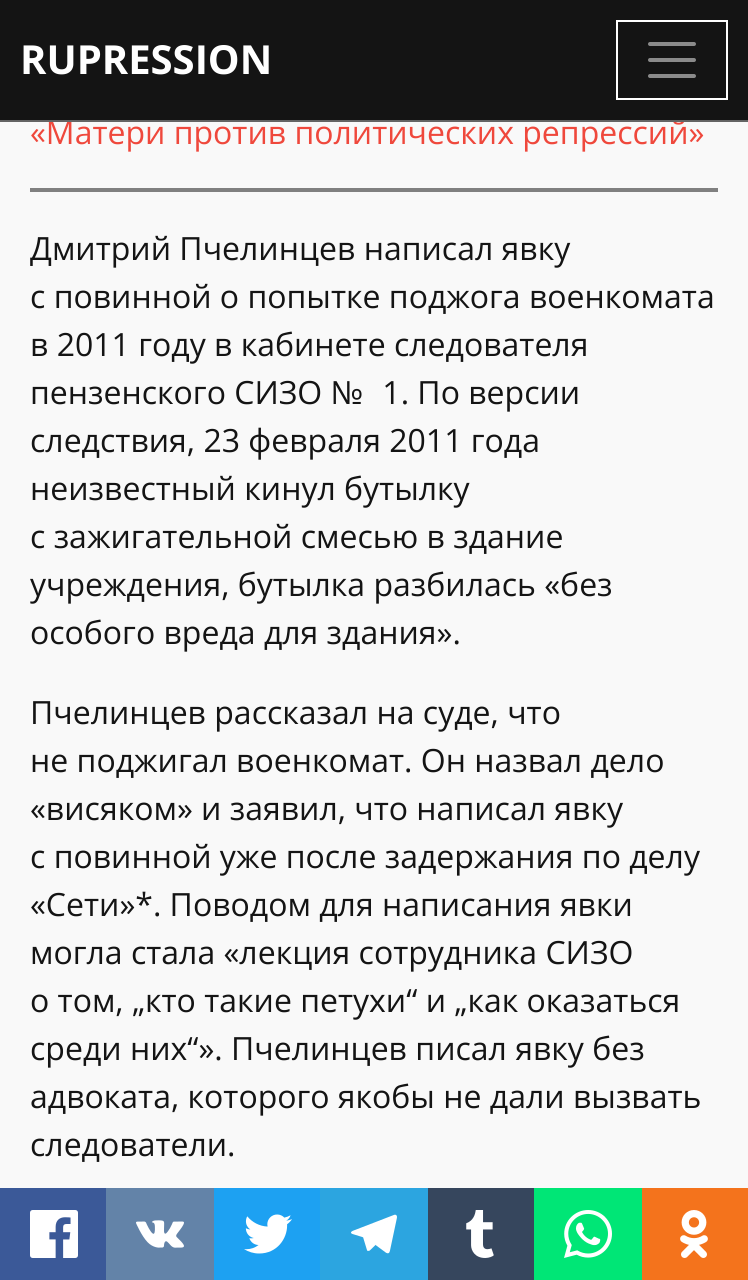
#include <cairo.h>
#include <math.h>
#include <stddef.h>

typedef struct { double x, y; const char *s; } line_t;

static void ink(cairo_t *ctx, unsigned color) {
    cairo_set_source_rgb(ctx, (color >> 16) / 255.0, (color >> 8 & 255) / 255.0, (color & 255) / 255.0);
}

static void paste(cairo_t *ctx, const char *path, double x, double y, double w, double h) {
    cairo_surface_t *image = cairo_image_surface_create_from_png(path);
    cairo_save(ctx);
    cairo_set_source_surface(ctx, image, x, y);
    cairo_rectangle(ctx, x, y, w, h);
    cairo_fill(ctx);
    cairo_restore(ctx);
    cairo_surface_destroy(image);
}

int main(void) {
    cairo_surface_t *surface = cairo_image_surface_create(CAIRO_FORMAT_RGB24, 748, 1280);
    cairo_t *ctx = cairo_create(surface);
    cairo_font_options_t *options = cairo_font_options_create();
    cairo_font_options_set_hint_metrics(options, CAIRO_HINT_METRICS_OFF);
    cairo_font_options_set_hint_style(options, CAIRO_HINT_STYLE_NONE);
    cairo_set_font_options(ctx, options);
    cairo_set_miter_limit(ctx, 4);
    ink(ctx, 0xF9F9F9);
    cairo_paint(ctx);
    cairo_select_font_face(ctx, "Open Sans", CAIRO_FONT_SLANT_NORMAL, CAIRO_FONT_WEIGHT_NORMAL);
    cairo_set_font_size(ctx, 32);
    ink(ctx, 0xEF483C);
    cairo_move_to(ctx, 30, 144);
    cairo_show_text(ctx, "«Матери против политических репрессий»");
    ink(ctx, 0x141414);
    cairo_rectangle(ctx, 0, 0, 748, 120);
    cairo_fill(ctx);
    ink(ctx, 0x646464);
    cairo_rectangle(ctx, 0, 120, 748, 2);
    cairo_fill(ctx);
    cairo_select_font_face(ctx, "Open Sans", CAIRO_FONT_SLANT_NORMAL, CAIRO_FONT_WEIGHT_BOLD);
    cairo_set_font_size(ctx, 40);
    ink(ctx, 0xFFFFFF);
    cairo_move_to(ctx, 20, 74);
    cairo_show_text(ctx, "RUPRESSION");
    cairo_rectangle(ctx, 617, 21, 110, 78);
    cairo_stroke(ctx);
    cairo_new_path(ctx);
    cairo_move_to(ctx, 650, 44);
    cairo_line_to(ctx, 694, 44);
    cairo_move_to(ctx, 650, 60);
    cairo_line_to(ctx, 694, 60);
    cairo_move_to(ctx, 650, 76);
    cairo_line_to(ctx, 694, 76);
    ink(ctx, 0x8A8A8A);
    cairo_set_line_width(ctx, 4);
    cairo_set_line_cap(ctx, CAIRO_LINE_CAP_ROUND);
    cairo_stroke(ctx);
    ink(ctx, 0x808080);
    cairo_rectangle(ctx, 30, 188, 688, 4);
    cairo_fill(ctx);
    cairo_select_font_face(ctx, "Open Sans", CAIRO_FONT_SLANT_NORMAL, CAIRO_FONT_WEIGHT_NORMAL);
    cairo_set_font_size(ctx, 32);
    ink(ctx, 0x141414);
    {
        static const line_t items[] = {
            {30, 260, "Дмитрий Пчелинцев написал явку"},
            {30, 308, "с повинной о попытке поджога военкомата"},
            {30, 356, "в 2011 году в кабинете следователя"},
            {30, 404, "пензенского СИЗО № 1. По версии"},
            {30, 452, "следствия, 23 февраля 2011 года"},
            {30, 500, "неизвестный кинул бутылку"},
            {30, 548, "с зажигательной смесью в здание"},
            {30, 596, "учреждения, бутылка разбилась «без"},
            {30, 644, "особого вреда для здания»."},
            {30, 724, "Пчелинцев рассказал на суде, что"},
            {30, 772, "не поджигал военкомат. Он назвал дело"},
            {30, 820, "«висяком» и заявил, что написал явку"},
            {30, 868, "с повинной уже после задержания по делу"},
            {30, 916, "«Сети»*. Поводом для написания явки"},
            {30, 964, "могла стала «лекция сотрудника СИЗО"},
            {30, 1012, "о том, „кто такие петухи“ и „как оказаться"},
            {30, 1060, "среди них“». Пчелинцев писал явку без"},
            {30, 1108, "адвоката, которого якобы не дали вызвать"},
            {30, 1156, "следователи."},
        };
        for (size_t i = 0; i < sizeof items / sizeof *items; i++) {
            cairo_move_to(ctx, items[i].x, items[i].y);
            cairo_show_text(ctx, items[i].s);
        }
    }
    ink(ctx, 0x3B5998);
    cairo_rectangle(ctx, 0, 1188, 106, 92);
    cairo_fill(ctx);
    paste(ctx, "media/1.png", 30, 1210, 48, 48);
    ink(ctx, 0x6383A8);
    cairo_rectangle(ctx, 106, 1188, 108, 92);
    cairo_fill(ctx);
    paste(ctx, "media/2.png", 136, 1220, 48, 28);
    ink(ctx, 0x1DA1F2);
    cairo_rectangle(ctx, 214, 1188, 106, 92);
    cairo_fill(ctx);
    paste(ctx, "media/3.png", 244, 1214, 48, 40);
    ink(ctx, 0x2CA5E0);
    cairo_rectangle(ctx, 320, 1188, 108, 92);
    cairo_fill(ctx);
    paste(ctx, "media/4.png", 351, 1214, 46, 40);
    ink(ctx, 0x36465D);
    cairo_rectangle(ctx, 428, 1188, 106, 92);
    cairo_fill(ctx);
    paste(ctx, "media/5.png", 466, 1210, 28, 48);
    ink(ctx, 0x00E676);
    cairo_rectangle(ctx, 534, 1188, 108, 92);
    cairo_fill(ctx);
    paste(ctx, "media/6.png", 564, 1210, 48, 48);
    ink(ctx, 0xF4731C);
    cairo_rectangle(ctx, 642, 1188, 106, 92);
    cairo_fill(ctx);
    paste(ctx, "media/7.png", 680, 1210, 28, 48);
    cairo_surface_write_to_png(surface, "image.png");
    cairo_font_options_destroy(options);
    cairo_destroy(ctx);
    cairo_surface_destroy(surface);
    return 0;
}
